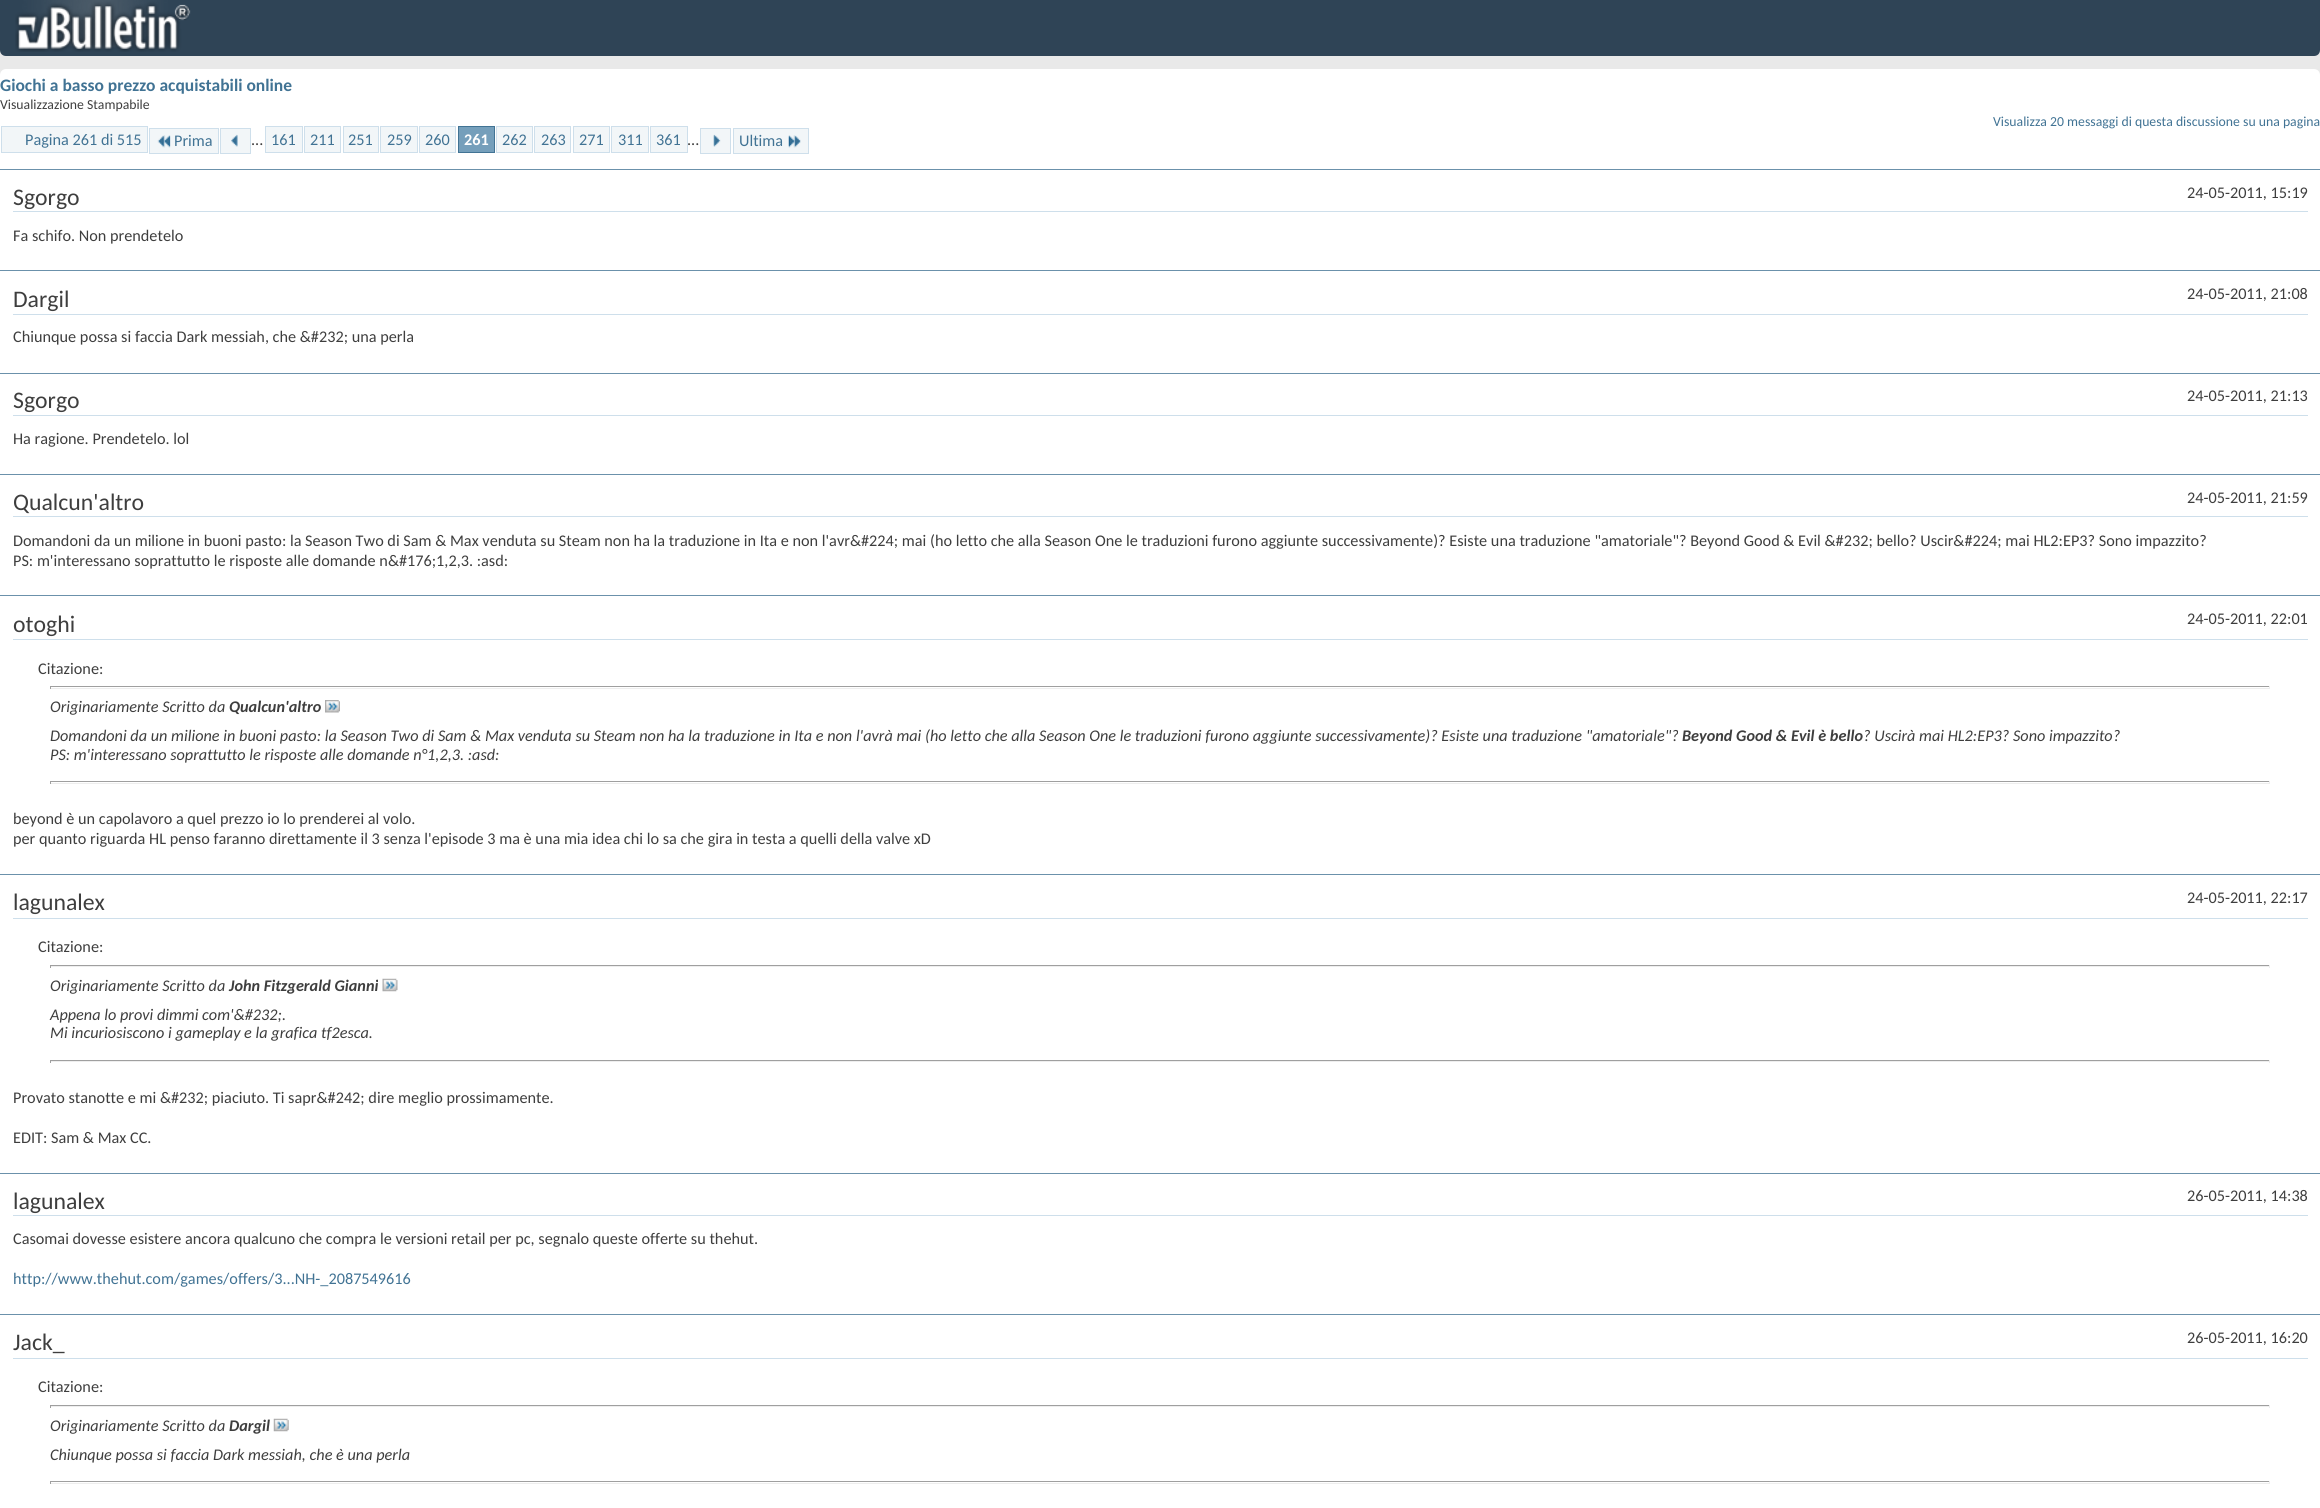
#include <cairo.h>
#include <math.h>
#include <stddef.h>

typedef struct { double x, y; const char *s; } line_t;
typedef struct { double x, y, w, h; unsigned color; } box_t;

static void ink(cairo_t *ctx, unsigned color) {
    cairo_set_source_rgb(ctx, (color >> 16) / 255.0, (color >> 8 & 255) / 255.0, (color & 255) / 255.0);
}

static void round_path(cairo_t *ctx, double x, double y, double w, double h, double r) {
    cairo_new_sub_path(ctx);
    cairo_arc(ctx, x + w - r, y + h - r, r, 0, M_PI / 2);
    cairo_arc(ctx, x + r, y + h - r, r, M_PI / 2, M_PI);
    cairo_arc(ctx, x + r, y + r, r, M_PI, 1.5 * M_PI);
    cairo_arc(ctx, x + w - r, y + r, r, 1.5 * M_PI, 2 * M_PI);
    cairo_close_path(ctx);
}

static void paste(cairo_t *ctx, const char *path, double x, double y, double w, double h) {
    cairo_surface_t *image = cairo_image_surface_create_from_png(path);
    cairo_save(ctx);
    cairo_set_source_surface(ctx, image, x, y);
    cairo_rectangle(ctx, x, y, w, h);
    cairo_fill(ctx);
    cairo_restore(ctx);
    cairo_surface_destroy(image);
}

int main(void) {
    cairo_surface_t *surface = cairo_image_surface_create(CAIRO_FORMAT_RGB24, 2320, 1508);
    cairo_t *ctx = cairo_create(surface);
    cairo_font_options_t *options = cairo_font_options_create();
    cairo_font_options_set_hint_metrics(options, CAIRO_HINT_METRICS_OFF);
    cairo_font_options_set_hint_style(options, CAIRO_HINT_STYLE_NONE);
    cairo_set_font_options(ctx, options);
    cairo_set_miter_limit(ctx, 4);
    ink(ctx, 0xE9E9E9);
    cairo_paint(ctx);
    ink(ctx, 0x2F4456);
    cairo_new_path(ctx);
    cairo_move_to(ctx, 0, 0);
    cairo_line_to(ctx, 2320, 0);
    cairo_line_to(ctx, 2320, 50);
    cairo_curve_to(ctx, 2320, 53.5, 2317.5, 56, 2314, 56);
    cairo_line_to(ctx, 6, 56);
    cairo_curve_to(ctx, 2.5, 56, 0, 53.5, 0, 50);
    cairo_close_path(ctx);
    cairo_fill(ctx);
    paste(ctx, "media/1.png", 15, 0, 176, 52);
    ink(ctx, 0xFFFFFF);
    round_path(ctx, 0, 69, 2320, 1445, 6);
    cairo_fill(ctx);
    cairo_select_font_face(ctx, "Carlito", CAIRO_FONT_SLANT_NORMAL, CAIRO_FONT_WEIGHT_BOLD);
    cairo_set_font_size(ctx, 17.5);
    ink(ctx, 0x417394);
    cairo_move_to(ctx, 0, 91);
    cairo_show_text(ctx, "Giochi a basso prezzo acquistabili online");
    cairo_select_font_face(ctx, "Carlito", CAIRO_FONT_SLANT_NORMAL, CAIRO_FONT_WEIGHT_NORMAL);
    cairo_set_font_size(ctx, 13.75);
    ink(ctx, 0x3E3E3E);
    cairo_move_to(ctx, 0, 109);
    cairo_show_text(ctx, "Visualizzazione Stampabile");
    ink(ctx, 0x417394);
    cairo_move_to(ctx, 1993, 126);
    cairo_show_text(ctx, "Visualizza 20 messaggi di questa discussione su una pagina");
    ink(ctx, 0xF2F6F8);
    cairo_rectangle(ctx, 1.5, 126.5, 146, 26);
    cairo_fill_preserve(ctx);
    ink(ctx, 0xCEDFEB);
    cairo_set_line_width(ctx, 1);
    cairo_stroke(ctx);
    cairo_set_font_size(ctx, 16.25);
    ink(ctx, 0x417394);
    cairo_move_to(ctx, 25, 145);
    cairo_show_text(ctx, "Pagina 261 di 515");
    ink(ctx, 0xF2F6F8);
    cairo_rectangle(ctx, 150, 129, 68, 24);
    cairo_fill(ctx);
    paste(ctx, "media/2.png", 157, 135, 14, 13);
    ink(ctx, 0x417394);
    cairo_move_to(ctx, 174, 146);
    cairo_show_text(ctx, "Prima");
    {
        static const box_t items[] = {
            {149, 128, 70, 1, 0xCEDFEB},
            {149, 153, 25, 1, 0xCEDFEB},
            {149, 128, 1, 26, 0xCEDFEB},
            {218, 128, 1, 26, 0xCEDFEB},
            {174, 153, 45, 1, 0xCEDFEB},
        };
        for (size_t i = 0; i < sizeof items / sizeof *items; i++) {
            ink(ctx, items[i].color);
            cairo_rectangle(ctx, items[i].x, items[i].y, items[i].w, items[i].h);
            cairo_fill(ctx);
        }
    }
    ink(ctx, 0xF2F6F8);
    cairo_rectangle(ctx, 220.5, 128.5, 30, 25);
    cairo_fill_preserve(ctx);
    ink(ctx, 0xCEDFEB);
    cairo_stroke(ctx);
    paste(ctx, "media/3.png", 231, 134, 7, 13);
    ink(ctx, 0x3E3E3E);
    cairo_move_to(ctx, 251, 145);
    cairo_show_text(ctx, "...");
    ink(ctx, 0xF2F6F8);
    cairo_rectangle(ctx, 265.5, 126.5, 37, 26);
    cairo_fill_preserve(ctx);
    ink(ctx, 0xCEDFEB);
    cairo_stroke(ctx);
    ink(ctx, 0x417394);
    cairo_move_to(ctx, 271, 145);
    cairo_show_text(ctx, "161");
    ink(ctx, 0xF2F6F8);
    cairo_rectangle(ctx, 304.5, 126.5, 36, 26);
    cairo_fill_preserve(ctx);
    ink(ctx, 0xCEDFEB);
    cairo_stroke(ctx);
    ink(ctx, 0x417394);
    cairo_move_to(ctx, 310, 145);
    cairo_show_text(ctx, "211");
    ink(ctx, 0xF2F6F8);
    cairo_rectangle(ctx, 343.5, 126.5, 35, 26);
    cairo_fill_preserve(ctx);
    ink(ctx, 0xCEDFEB);
    cairo_stroke(ctx);
    ink(ctx, 0x417394);
    cairo_move_to(ctx, 348, 145);
    cairo_show_text(ctx, "251");
    ink(ctx, 0xF2F6F8);
    cairo_rectangle(ctx, 380.5, 126.5, 37, 26);
    cairo_fill_preserve(ctx);
    ink(ctx, 0xCEDFEB);
    cairo_stroke(ctx);
    ink(ctx, 0x417394);
    cairo_move_to(ctx, 387, 145);
    cairo_show_text(ctx, "259");
    ink(ctx, 0xF2F6F8);
    cairo_rectangle(ctx, 419.5, 126.5, 36, 26);
    cairo_fill_preserve(ctx);
    ink(ctx, 0xCEDFEB);
    cairo_stroke(ctx);
    ink(ctx, 0x417394);
    cairo_move_to(ctx, 425, 145);
    cairo_show_text(ctx, "260");
    ink(ctx, 0x759FBB);
    cairo_rectangle(ctx, 458.5, 126.5, 36, 26);
    cairo_fill_preserve(ctx);
    ink(ctx, 0x417394);
    cairo_stroke(ctx);
    cairo_select_font_face(ctx, "Carlito", CAIRO_FONT_SLANT_NORMAL, CAIRO_FONT_WEIGHT_BOLD);
    ink(ctx, 0xFFFFFF);
    cairo_move_to(ctx, 464, 145);
    cairo_show_text(ctx, "261");
    ink(ctx, 0xF2F6F8);
    cairo_rectangle(ctx, 496.5, 126.5, 36, 26);
    cairo_fill_preserve(ctx);
    ink(ctx, 0xCEDFEB);
    cairo_stroke(ctx);
    cairo_select_font_face(ctx, "Carlito", CAIRO_FONT_SLANT_NORMAL, CAIRO_FONT_WEIGHT_NORMAL);
    ink(ctx, 0x417394);
    cairo_move_to(ctx, 502, 145);
    cairo_show_text(ctx, "262");
    ink(ctx, 0xF2F6F8);
    cairo_rectangle(ctx, 534.5, 126.5, 36, 26);
    cairo_fill_preserve(ctx);
    ink(ctx, 0xCEDFEB);
    cairo_stroke(ctx);
    ink(ctx, 0x417394);
    cairo_move_to(ctx, 541, 145);
    cairo_show_text(ctx, "263");
    ink(ctx, 0xF2F6F8);
    cairo_rectangle(ctx, 573.5, 126.5, 36, 26);
    cairo_fill_preserve(ctx);
    ink(ctx, 0xCEDFEB);
    cairo_stroke(ctx);
    ink(ctx, 0x417394);
    cairo_move_to(ctx, 579, 145);
    cairo_show_text(ctx, "271");
    ink(ctx, 0xF2F6F8);
    cairo_rectangle(ctx, 611.5, 126.5, 37, 26);
    cairo_fill_preserve(ctx);
    ink(ctx, 0xCEDFEB);
    cairo_stroke(ctx);
    ink(ctx, 0x417394);
    cairo_move_to(ctx, 618, 145);
    cairo_show_text(ctx, "311");
    ink(ctx, 0xF2F6F8);
    cairo_rectangle(ctx, 650.5, 126.5, 37, 26);
    cairo_fill_preserve(ctx);
    ink(ctx, 0xCEDFEB);
    cairo_stroke(ctx);
    ink(ctx, 0x417394);
    cairo_move_to(ctx, 656, 145);
    cairo_show_text(ctx, "361");
    ink(ctx, 0x3E3E3E);
    cairo_move_to(ctx, 687, 145);
    cairo_show_text(ctx, "...");
    ink(ctx, 0xF2F6F8);
    cairo_rectangle(ctx, 700.5, 128.5, 30, 25);
    cairo_fill_preserve(ctx);
    ink(ctx, 0xCEDFEB);
    cairo_stroke(ctx);
    paste(ctx, "media/4.png", 713, 134, 8, 13);
    ink(ctx, 0xF2F6F8);
    cairo_rectangle(ctx, 734, 129, 74, 24);
    cairo_fill(ctx);
    ink(ctx, 0x417394);
    cairo_move_to(ctx, 739, 146);
    cairo_show_text(ctx, "Ultima");
    {
        static const box_t items[] = {
            {733, 128, 76, 1, 0xCEDFEB},
            {733, 153, 51, 1, 0xCEDFEB},
            {733, 128, 1, 26, 0xCEDFEB},
            {808, 128, 1, 26, 0xCEDFEB},
            {784, 153, 25, 1, 0xCEDFEB},
        };
        for (size_t i = 0; i < sizeof items / sizeof *items; i++) {
            ink(ctx, items[i].color);
            cairo_rectangle(ctx, items[i].x, items[i].y, items[i].w, items[i].h);
            cairo_fill(ctx);
        }
    }
    paste(ctx, "media/5.png", 788, 135, 13, 13);
    ink(ctx, 0x6B91AB);
    cairo_rectangle(ctx, 0, 169, 2320, 1);
    cairo_fill(ctx);
    ink(ctx, 0xCEDFEB);
    cairo_rectangle(ctx, 13, 211, 2295, 1);
    cairo_fill(ctx);
    cairo_set_font_size(ctx, 23.75);
    ink(ctx, 0x3E3E3E);
    cairo_move_to(ctx, 13, 205);
    cairo_show_text(ctx, "Sgorgo");
    cairo_set_font_size(ctx, 16.25);
    cairo_move_to(ctx, 2187, 198);
    cairo_show_text(ctx, "24-05-2011, 15:19");
    cairo_move_to(ctx, 13, 241);
    cairo_show_text(ctx, "Fa schifo. Non prendetelo");
    ink(ctx, 0x6B91AB);
    cairo_rectangle(ctx, 0, 270, 2320, 1);
    cairo_fill(ctx);
    ink(ctx, 0xCEDFEB);
    cairo_rectangle(ctx, 13, 314, 2295, 1);
    cairo_fill(ctx);
    cairo_set_font_size(ctx, 23.75);
    ink(ctx, 0x3E3E3E);
    cairo_move_to(ctx, 13, 307);
    cairo_show_text(ctx, "Dargil");
    cairo_set_font_size(ctx, 16.25);
    cairo_move_to(ctx, 2187, 299);
    cairo_show_text(ctx, "24-05-2011, 21:08");
    cairo_move_to(ctx, 13, 342);
    cairo_show_text(ctx, "Chiunque possa si faccia Dark messiah, che &#232; una perla");
    ink(ctx, 0x6B91AB);
    cairo_rectangle(ctx, 0, 373, 2320, 1);
    cairo_fill(ctx);
    ink(ctx, 0xCEDFEB);
    cairo_rectangle(ctx, 13, 415, 2295, 1);
    cairo_fill(ctx);
    cairo_set_font_size(ctx, 23.75);
    ink(ctx, 0x3E3E3E);
    cairo_move_to(ctx, 13, 408);
    cairo_show_text(ctx, "Sgorgo");
    cairo_set_font_size(ctx, 16.25);
    cairo_move_to(ctx, 2187, 401);
    cairo_show_text(ctx, "24-05-2011, 21:13");
    cairo_move_to(ctx, 13, 444);
    cairo_show_text(ctx, "Ha ragione. Prendetelo. lol");
    ink(ctx, 0x6B91AB);
    cairo_rectangle(ctx, 0, 474, 2320, 1);
    cairo_fill(ctx);
    ink(ctx, 0xCEDFEB);
    cairo_rectangle(ctx, 13, 516, 2295, 1);
    cairo_fill(ctx);
    cairo_set_font_size(ctx, 23.75);
    ink(ctx, 0x3E3E3E);
    cairo_move_to(ctx, 13, 510);
    cairo_show_text(ctx, "Qualcun'altro");
    cairo_set_font_size(ctx, 16.25);
    {
        static const line_t items[] = {
            {2187, 503, "24-05-2011, 21:59"},
            {13, 546, "Domandoni da un milione in buoni pasto: la Season Two di Sam & Max venduta su Steam non ha la traduzione in Ita e non l'avr&#224; mai (ho letto che alla Season One le traduzioni furono aggiunte successivamente)? Esiste una traduzione \"amatoriale\"? Beyond Good & Evil &#232; bello? Uscir&#224; mai HL2:EP3? Sono impazzito?"},
            {13, 566, "PS: m'interessano soprattutto le risposte alle domande n&#176;1,2,3. :asd:"},
        };
        for (size_t i = 0; i < sizeof items / sizeof *items; i++) {
            cairo_move_to(ctx, items[i].x, items[i].y);
            cairo_show_text(ctx, items[i].s);
        }
    }
    ink(ctx, 0x6B91AB);
    cairo_rectangle(ctx, 0, 595, 2320, 1);
    cairo_fill(ctx);
    ink(ctx, 0xCEDFEB);
    cairo_rectangle(ctx, 13, 639, 2295, 1);
    cairo_fill(ctx);
    cairo_set_font_size(ctx, 23.75);
    ink(ctx, 0x3E3E3E);
    cairo_move_to(ctx, 13, 632);
    cairo_show_text(ctx, "otoghi");
    cairo_set_font_size(ctx, 16.25);
    cairo_move_to(ctx, 2187, 624);
    cairo_show_text(ctx, "24-05-2011, 22:01");
    cairo_move_to(ctx, 38, 674);
    cairo_show_text(ctx, "Citazione:");
    {
        static const box_t items[] = {
            {50, 686, 2220, 1, 0x9F9F9F},
            {2269, 686, 1, 3, 0xEEEEEE},
            {50, 688, 2220, 1, 0xEEEEEE},
            {50, 686, 1, 3, 0x9F9F9F},
        };
        for (size_t i = 0; i < sizeof items / sizeof *items; i++) {
            ink(ctx, items[i].color);
            cairo_rectangle(ctx, items[i].x, items[i].y, items[i].w, items[i].h);
            cairo_fill(ctx);
        }
    }
    cairo_select_font_face(ctx, "Carlito", CAIRO_FONT_SLANT_ITALIC, CAIRO_FONT_WEIGHT_NORMAL);
    ink(ctx, 0x3E3E3E);
    cairo_move_to(ctx, 50, 712);
    cairo_show_text(ctx, "Originariamente Scritto da");
    cairo_select_font_face(ctx, "Carlito", CAIRO_FONT_SLANT_ITALIC, CAIRO_FONT_WEIGHT_BOLD);
    cairo_move_to(ctx, 229, 712);
    cairo_show_text(ctx, "Qualcun'altro");
    paste(ctx, "media/6.png", 325, 700, 15, 13);
    cairo_select_font_face(ctx, "Carlito", CAIRO_FONT_SLANT_ITALIC, CAIRO_FONT_WEIGHT_NORMAL);
    cairo_move_to(ctx, 50, 741);
    cairo_show_text(ctx, "Domandoni da un milione in buoni pasto: la Season Two di Sam & Max venduta su Steam non ha la traduzione in Ita e non l'avrà mai (ho letto che alla Season One le traduzioni furono aggiunte successivamente)? Esiste una traduzione \"amatoriale\"?");
    cairo_select_font_face(ctx, "Carlito", CAIRO_FONT_SLANT_ITALIC, CAIRO_FONT_WEIGHT_BOLD);
    cairo_move_to(ctx, 1682, 741);
    cairo_show_text(ctx, "Beyond Good & Evil è bello");
    cairo_select_font_face(ctx, "Carlito", CAIRO_FONT_SLANT_ITALIC, CAIRO_FONT_WEIGHT_NORMAL);
    cairo_move_to(ctx, 1863, 741);
    cairo_show_text(ctx, "? Uscirà mai HL2:EP3? Sono impazzito?");
    cairo_move_to(ctx, 50, 760);
    cairo_show_text(ctx, "PS: m'interessano soprattutto le risposte alle domande n°1,2,3. :asd:");
    {
        static const box_t items[] = {
            {50, 781, 2220, 1, 0x9F9F9F},
            {2269, 781, 1, 3, 0xEEEEEE},
            {50, 783, 2220, 1, 0xEEEEEE},
            {50, 781, 1, 3, 0x9F9F9F},
        };
        for (size_t i = 0; i < sizeof items / sizeof *items; i++) {
            ink(ctx, items[i].color);
            cairo_rectangle(ctx, items[i].x, items[i].y, items[i].w, items[i].h);
            cairo_fill(ctx);
        }
    }
    cairo_select_font_face(ctx, "Carlito", CAIRO_FONT_SLANT_NORMAL, CAIRO_FONT_WEIGHT_NORMAL);
    ink(ctx, 0x3E3E3E);
    cairo_move_to(ctx, 13, 824);
    cairo_show_text(ctx, "beyond è un capolavoro a quel prezzo io lo prenderei al volo.");
    cairo_move_to(ctx, 13, 844);
    cairo_show_text(ctx, "per quanto riguarda HL penso faranno direttamente il 3 senza l'episode 3 ma è una mia idea chi lo sa che gira in testa a quelli della valve xD");
    ink(ctx, 0x6B91AB);
    cairo_rectangle(ctx, 0, 874, 2320, 1);
    cairo_fill(ctx);
    ink(ctx, 0xCEDFEB);
    cairo_rectangle(ctx, 13, 918, 2295, 1);
    cairo_fill(ctx);
    cairo_set_font_size(ctx, 23.75);
    ink(ctx, 0x3E3E3E);
    cairo_move_to(ctx, 13, 910);
    cairo_show_text(ctx, "lagunalex");
    cairo_set_font_size(ctx, 16.25);
    cairo_move_to(ctx, 2187, 903);
    cairo_show_text(ctx, "24-05-2011, 22:17");
    cairo_move_to(ctx, 38, 952);
    cairo_show_text(ctx, "Citazione:");
    {
        static const box_t items[] = {
            {50, 965, 2220, 1, 0x9F9F9F},
            {2269, 965, 1, 3, 0xEEEEEE},
            {50, 966, 2220, 1, 0xEEEEEE},
            {50, 965, 1, 3, 0x9F9F9F},
        };
        for (size_t i = 0; i < sizeof items / sizeof *items; i++) {
            ink(ctx, items[i].color);
            cairo_rectangle(ctx, items[i].x, items[i].y, items[i].w, items[i].h);
            cairo_fill(ctx);
        }
    }
    cairo_select_font_face(ctx, "Carlito", CAIRO_FONT_SLANT_ITALIC, CAIRO_FONT_WEIGHT_NORMAL);
    ink(ctx, 0x3E3E3E);
    cairo_move_to(ctx, 50, 991);
    cairo_show_text(ctx, "Originariamente Scritto da");
    cairo_select_font_face(ctx, "Carlito", CAIRO_FONT_SLANT_ITALIC, CAIRO_FONT_WEIGHT_BOLD);
    cairo_move_to(ctx, 229, 991);
    cairo_show_text(ctx, "John Fitzgerald Gianni");
    paste(ctx, "media/7.png", 382, 978, 16, 14);
    cairo_select_font_face(ctx, "Carlito", CAIRO_FONT_SLANT_ITALIC, CAIRO_FONT_WEIGHT_NORMAL);
    cairo_move_to(ctx, 50, 1020);
    cairo_show_text(ctx, "Appena lo provi dimmi com'&#232;.");
    cairo_move_to(ctx, 50, 1038);
    cairo_show_text(ctx, "Mi incuriosiscono i gameplay e la grafica tf2esca.");
    {
        static const box_t items[] = {
            {50, 1060, 2220, 1, 0x9F9F9F},
            {2269, 1060, 1, 3, 0xEEEEEE},
            {50, 1061, 2220, 1, 0xEEEEEE},
            {50, 1060, 1, 3, 0x9F9F9F},
        };
        for (size_t i = 0; i < sizeof items / sizeof *items; i++) {
            ink(ctx, items[i].color);
            cairo_rectangle(ctx, items[i].x, items[i].y, items[i].w, items[i].h);
            cairo_fill(ctx);
        }
    }
    cairo_select_font_face(ctx, "Carlito", CAIRO_FONT_SLANT_NORMAL, CAIRO_FONT_WEIGHT_NORMAL);
    ink(ctx, 0x3E3E3E);
    cairo_move_to(ctx, 13, 1103);
    cairo_show_text(ctx, "Provato stanotte e mi &#232; piaciuto. Ti sapr&#242; dire meglio prossimamente.");
    cairo_move_to(ctx, 13, 1143);
    cairo_show_text(ctx, "EDIT: Sam & Max CC.");
    ink(ctx, 0x6B91AB);
    cairo_rectangle(ctx, 0, 1173, 2320, 1);
    cairo_fill(ctx);
    ink(ctx, 0xCEDFEB);
    cairo_rectangle(ctx, 13, 1215, 2295, 1);
    cairo_fill(ctx);
    cairo_set_font_size(ctx, 23.75);
    ink(ctx, 0x3E3E3E);
    cairo_move_to(ctx, 13, 1209);
    cairo_show_text(ctx, "lagunalex");
    cairo_set_font_size(ctx, 16.25);
    cairo_move_to(ctx, 2187, 1201);
    cairo_show_text(ctx, "26-05-2011, 14:38");
    cairo_move_to(ctx, 13, 1244);
    cairo_show_text(ctx, "Casomai dovesse esistere ancora qualcuno che compra le versioni retail per pc, segnalo queste offerte su thehut.");
    ink(ctx, 0x417394);
    cairo_move_to(ctx, 13, 1284);
    cairo_show_text(ctx, "http://www.thehut.com/games/offers/3...NH-_2087549616");
    ink(ctx, 0x6B91AB);
    cairo_rectangle(ctx, 0, 1314, 2320, 1);
    cairo_fill(ctx);
    ink(ctx, 0xCEDFEB);
    cairo_rectangle(ctx, 13, 1358, 2295, 1);
    cairo_fill(ctx);
    cairo_set_font_size(ctx, 23.75);
    ink(ctx, 0x3E3E3E);
    cairo_move_to(ctx, 13, 1350);
    cairo_show_text(ctx, "Jack_");
    cairo_set_font_size(ctx, 16.25);
    cairo_move_to(ctx, 2187, 1343);
    cairo_show_text(ctx, "26-05-2011, 16:20");
    cairo_move_to(ctx, 38, 1392);
    cairo_show_text(ctx, "Citazione:");
    {
        static const box_t items[] = {
            {50, 1405, 2220, 1, 0x9F9F9F},
            {2269, 1405, 1, 3, 0xEEEEEE},
            {50, 1406, 2220, 1, 0xEEEEEE},
            {50, 1405, 1, 3, 0x9F9F9F},
        };
        for (size_t i = 0; i < sizeof items / sizeof *items; i++) {
            ink(ctx, items[i].color);
            cairo_rectangle(ctx, items[i].x, items[i].y, items[i].w, items[i].h);
            cairo_fill(ctx);
        }
    }
    cairo_select_font_face(ctx, "Carlito", CAIRO_FONT_SLANT_ITALIC, CAIRO_FONT_WEIGHT_NORMAL);
    ink(ctx, 0x3E3E3E);
    cairo_move_to(ctx, 50, 1431);
    cairo_show_text(ctx, "Originariamente Scritto da");
    cairo_select_font_face(ctx, "Carlito", CAIRO_FONT_SLANT_ITALIC, CAIRO_FONT_WEIGHT_BOLD);
    cairo_move_to(ctx, 229, 1431);
    cairo_show_text(ctx, "Dargil");
    paste(ctx, "media/8.png", 273, 1418, 16, 14);
    cairo_select_font_face(ctx, "Carlito", CAIRO_FONT_SLANT_ITALIC, CAIRO_FONT_WEIGHT_NORMAL);
    cairo_move_to(ctx, 50, 1460);
    cairo_show_text(ctx, "Chiunque possa si faccia Dark messiah, che è una perla");
    {
        static const box_t items[] = {
            {50, 1481, 2220, 1, 0x9F9F9F},
            {2269, 1481, 1, 3, 0xEEEEEE},
            {50, 1483, 2220, 1, 0xEEEEEE},
            {50, 1481, 1, 3, 0x9F9F9F},
        };
        for (size_t i = 0; i < sizeof items / sizeof *items; i++) {
            ink(ctx, items[i].color);
            cairo_rectangle(ctx, items[i].x, items[i].y, items[i].w, items[i].h);
            cairo_fill(ctx);
        }
    }
    cairo_surface_write_to_png(surface, "image.png");
    cairo_font_options_destroy(options);
    cairo_destroy(ctx);
    cairo_surface_destroy(surface);
    return 0;
}
